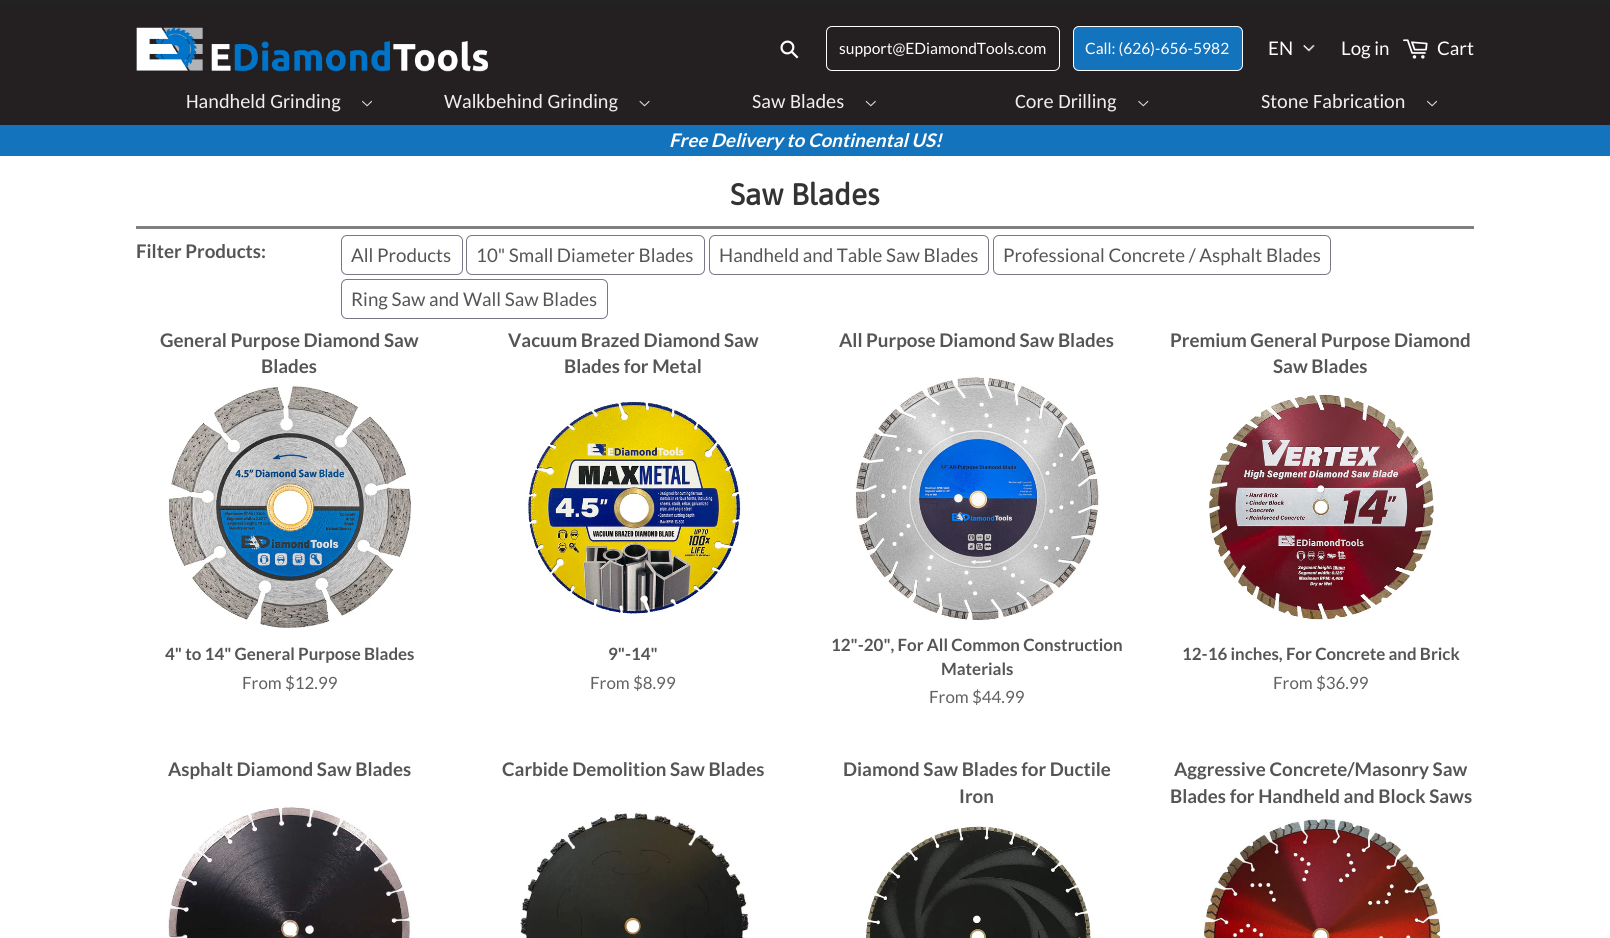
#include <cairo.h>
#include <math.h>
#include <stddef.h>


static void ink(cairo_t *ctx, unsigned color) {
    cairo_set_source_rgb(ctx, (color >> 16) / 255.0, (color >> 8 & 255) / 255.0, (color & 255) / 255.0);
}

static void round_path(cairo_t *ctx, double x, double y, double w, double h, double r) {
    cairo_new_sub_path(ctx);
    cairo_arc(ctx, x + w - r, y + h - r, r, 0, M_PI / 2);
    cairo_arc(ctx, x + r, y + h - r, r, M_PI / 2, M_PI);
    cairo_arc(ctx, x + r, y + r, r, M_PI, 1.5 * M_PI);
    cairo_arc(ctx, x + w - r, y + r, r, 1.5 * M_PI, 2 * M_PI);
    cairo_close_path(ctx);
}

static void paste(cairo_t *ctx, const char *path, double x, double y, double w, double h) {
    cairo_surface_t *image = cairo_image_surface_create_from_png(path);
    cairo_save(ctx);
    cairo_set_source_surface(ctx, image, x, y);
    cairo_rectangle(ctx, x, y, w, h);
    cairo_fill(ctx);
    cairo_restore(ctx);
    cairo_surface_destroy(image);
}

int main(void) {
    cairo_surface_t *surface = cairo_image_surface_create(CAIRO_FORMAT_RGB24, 1610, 938);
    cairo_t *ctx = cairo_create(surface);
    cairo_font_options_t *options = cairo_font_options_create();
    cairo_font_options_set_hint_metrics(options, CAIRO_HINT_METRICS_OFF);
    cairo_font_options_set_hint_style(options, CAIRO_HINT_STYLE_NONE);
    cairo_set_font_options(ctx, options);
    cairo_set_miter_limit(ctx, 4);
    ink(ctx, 0xFFFFFF);
    cairo_paint(ctx);
    ink(ctx, 0x222222);
    cairo_rectangle(ctx, 0, 0, 1610, 5);
    cairo_fill(ctx);
    ink(ctx, 0x241F21);
    cairo_rectangle(ctx, 0, 5, 1610, 120);
    cairo_fill(ctx);
    paste(ctx, "media/1.png", 136, 27, 352, 45);
    cairo_select_font_face(ctx, "DejaVu Sans", CAIRO_FONT_SLANT_NORMAL, CAIRO_FONT_WEIGHT_NORMAL);
    cairo_set_font_size(ctx, 25);
    ink(ctx, 0xFFFFFF);
    cairo_save(ctx);
    cairo_translate(ctx, 789, 62);
    cairo_rotate(ctx, -45 * M_PI / 180);
    cairo_move_to(ctx, 0, 0);
    cairo_show_text(ctx, "⚲");
    cairo_restore(ctx);
    round_path(ctx, 826.5, 26.5, 233, 44, 5.5);
    cairo_set_line_width(ctx, 1);
    cairo_stroke(ctx);
    cairo_select_font_face(ctx, "Lato", CAIRO_FONT_SLANT_NORMAL, CAIRO_FONT_WEIGHT_NORMAL);
    cairo_set_font_size(ctx, 15.6);
    cairo_move_to(ctx, 839, 54);
    cairo_show_text(ctx, "support@EDiamondTools.com");
    ink(ctx, 0x1373BC);
    round_path(ctx, 1073.5, 26.5, 169, 44, 5.5);
    cairo_fill_preserve(ctx);
    ink(ctx, 0xFFFFFF);
    cairo_stroke(ctx);
    cairo_move_to(ctx, 1085, 54);
    cairo_show_text(ctx, "Call: (626)-656-5982");
    paste(ctx, "media/2.png", 1303, 44, 12, 8);
    cairo_set_font_size(ctx, 18.75);
    cairo_move_to(ctx, 1268, 55);
    cairo_show_text(ctx, "EN");
    cairo_move_to(ctx, 1341, 55);
    cairo_show_text(ctx, "Log in");
    paste(ctx, "media/3.png", 1403, 39, 25, 20);
    cairo_move_to(ctx, 1437, 55);
    cairo_show_text(ctx, "Cart");
    cairo_select_font_face(ctx, "Carlito", CAIRO_FONT_SLANT_NORMAL, CAIRO_FONT_WEIGHT_NORMAL);
    cairo_set_font_size(ctx, 20.25);
    ink(ctx, 0xEEEEEE);
    cairo_move_to(ctx, 186, 108);
    cairo_show_text(ctx, "Handheld Grinding");
    paste(ctx, "media/4.png", 362, 100, 10, 7);
    cairo_move_to(ctx, 444, 108);
    cairo_show_text(ctx, "Walkbehind Grinding");
    paste(ctx, "media/5.png", 639, 100, 11, 7);
    cairo_move_to(ctx, 752, 108);
    cairo_show_text(ctx, "Saw Blades");
    paste(ctx, "media/6.png", 865, 100, 11, 7);
    cairo_move_to(ctx, 1015, 108);
    cairo_show_text(ctx, "Core Drilling");
    paste(ctx, "media/7.png", 1138, 100, 11, 7);
    cairo_move_to(ctx, 1261, 108);
    cairo_show_text(ctx, "Stone Fabrication");
    paste(ctx, "media/4.png", 1427, 100, 10, 7);
    ink(ctx, 0x1373BC);
    cairo_rectangle(ctx, 0, 125, 1610, 31);
    cairo_fill(ctx);
    cairo_select_font_face(ctx, "Lato", CAIRO_FONT_SLANT_ITALIC, CAIRO_FONT_WEIGHT_BOLD);
    cairo_set_font_size(ctx, 18.75);
    ink(ctx, 0xFFFFFF);
    cairo_move_to(ctx, 669, 147);
    cairo_show_text(ctx, "Free Delivery to Continental US!");
    ink(ctx, 0x808080);
    cairo_rectangle(ctx, 136, 226, 1338, 3);
    cairo_fill(ctx);
    cairo_select_font_face(ctx, "Asap", CAIRO_FONT_SLANT_NORMAL, CAIRO_FONT_WEIGHT_BOLD);
    cairo_set_font_size(ctx, 30);
    ink(ctx, 0x333333);
    cairo_move_to(ctx, 730, 205);
    cairo_show_text(ctx, "Saw Blades");
    cairo_select_font_face(ctx, "Lato", CAIRO_FONT_SLANT_NORMAL, CAIRO_FONT_WEIGHT_BOLD);
    cairo_set_font_size(ctx, 18.75);
    ink(ctx, 0x555555);
    cairo_move_to(ctx, 136, 258);
    cairo_show_text(ctx, "Filter Products:");
    round_path(ctx, 341.5, 235.5, 121, 39, 5.5);
    ink(ctx, 0x777788);
    cairo_stroke(ctx);
    cairo_select_font_face(ctx, "Lato", CAIRO_FONT_SLANT_NORMAL, CAIRO_FONT_WEIGHT_NORMAL);
    ink(ctx, 0x555555);
    cairo_move_to(ctx, 351, 262);
    cairo_show_text(ctx, "All Products");
    round_path(ctx, 466.5, 235.5, 238, 39, 5.5);
    ink(ctx, 0x777788);
    cairo_stroke(ctx);
    ink(ctx, 0x555555);
    cairo_move_to(ctx, 476, 262);
    cairo_show_text(ctx, "10\" Small Diameter Blades");
    round_path(ctx, 709.5, 235.5, 279, 39, 5.5);
    ink(ctx, 0x777788);
    cairo_stroke(ctx);
    ink(ctx, 0x555555);
    cairo_move_to(ctx, 719, 262);
    cairo_show_text(ctx, "Handheld and Table Saw Blades");
    round_path(ctx, 993.5, 235.5, 337, 39, 5.5);
    ink(ctx, 0x777788);
    cairo_stroke(ctx);
    ink(ctx, 0x555555);
    cairo_move_to(ctx, 1003, 262);
    cairo_show_text(ctx, "Professional Concrete / Asphalt Blades");
    round_path(ctx, 341.5, 279.5, 266, 39, 5.5);
    ink(ctx, 0x777788);
    cairo_stroke(ctx);
    ink(ctx, 0x555555);
    cairo_move_to(ctx, 351, 306);
    cairo_show_text(ctx, "Ring Saw and Wall Saw Blades");
    cairo_select_font_face(ctx, "Lato", CAIRO_FONT_SLANT_NORMAL, CAIRO_FONT_WEIGHT_BOLD);
    cairo_move_to(ctx, 160, 347);
    cairo_show_text(ctx, "General Purpose Diamond Saw");
    cairo_move_to(ctx, 261, 373);
    cairo_show_text(ctx, "Blades");
    paste(ctx, "media/8.png", 168, 385, 244, 243);
    cairo_set_font_size(ctx, 16.9);
    cairo_move_to(ctx, 165, 660);
    cairo_show_text(ctx, "4\" to 14\" General Purpose Blades");
    cairo_select_font_face(ctx, "Lato", CAIRO_FONT_SLANT_NORMAL, CAIRO_FONT_WEIGHT_NORMAL);
    ink(ctx, 0x626262);
    cairo_move_to(ctx, 242, 689);
    cairo_show_text(ctx, "From $12.99");
    cairo_select_font_face(ctx, "Lato", CAIRO_FONT_SLANT_NORMAL, CAIRO_FONT_WEIGHT_BOLD);
    cairo_set_font_size(ctx, 18.75);
    ink(ctx, 0x555555);
    cairo_move_to(ctx, 508, 347);
    cairo_show_text(ctx, "Vacuum Brazed Diamond Saw");
    cairo_move_to(ctx, 564, 373);
    cairo_show_text(ctx, "Blades for Metal");
    paste(ctx, "media/9.png", 527, 401, 215, 213);
    cairo_set_font_size(ctx, 16.9);
    cairo_move_to(ctx, 608, 660);
    cairo_show_text(ctx, "9\"-14\"");
    cairo_select_font_face(ctx, "Lato", CAIRO_FONT_SLANT_NORMAL, CAIRO_FONT_WEIGHT_NORMAL);
    ink(ctx, 0x626262);
    cairo_move_to(ctx, 590, 689);
    cairo_show_text(ctx, "From $8.99");
    cairo_select_font_face(ctx, "Lato", CAIRO_FONT_SLANT_NORMAL, CAIRO_FONT_WEIGHT_BOLD);
    cairo_set_font_size(ctx, 18.75);
    ink(ctx, 0x555555);
    cairo_move_to(ctx, 839, 347);
    cairo_show_text(ctx, "All Purpose Diamond Saw Blades");
    paste(ctx, "media/10.png", 855, 376, 245, 245);
    cairo_set_font_size(ctx, 16.9);
    cairo_move_to(ctx, 831, 651);
    cairo_show_text(ctx, "12\"-20\", For All Common Construction");
    cairo_move_to(ctx, 941, 675);
    cairo_show_text(ctx, "Materials");
    cairo_select_font_face(ctx, "Lato", CAIRO_FONT_SLANT_NORMAL, CAIRO_FONT_WEIGHT_NORMAL);
    ink(ctx, 0x626262);
    cairo_move_to(ctx, 929, 703);
    cairo_show_text(ctx, "From $44.99");
    cairo_select_font_face(ctx, "Lato", CAIRO_FONT_SLANT_NORMAL, CAIRO_FONT_WEIGHT_BOLD);
    cairo_set_font_size(ctx, 18.75);
    ink(ctx, 0x555555);
    cairo_move_to(ctx, 1170, 347);
    cairo_show_text(ctx, "Premium General Purpose Diamond");
    cairo_move_to(ctx, 1273, 373);
    cairo_show_text(ctx, "Saw Blades");
    paste(ctx, "media/11.png", 1207, 393, 227, 229);
    cairo_set_font_size(ctx, 16.9);
    cairo_move_to(ctx, 1182, 660);
    cairo_show_text(ctx, "12-16 inches, For Concrete and Brick");
    cairo_select_font_face(ctx, "Lato", CAIRO_FONT_SLANT_NORMAL, CAIRO_FONT_WEIGHT_NORMAL);
    ink(ctx, 0x626262);
    cairo_move_to(ctx, 1273, 689);
    cairo_show_text(ctx, "From $36.99");
    cairo_select_font_face(ctx, "Lato", CAIRO_FONT_SLANT_NORMAL, CAIRO_FONT_WEIGHT_BOLD);
    cairo_set_font_size(ctx, 18.75);
    ink(ctx, 0x555555);
    cairo_move_to(ctx, 168, 776);
    cairo_show_text(ctx, "Asphalt Diamond Saw Blades");
    paste(ctx, "media/12.png", 168, 806, 243, 132);
    cairo_move_to(ctx, 502, 776);
    cairo_show_text(ctx, "Carbide Demolition Saw Blades");
    paste(ctx, "media/13.png", 520, 811, 230, 127);
    cairo_move_to(ctx, 843, 776);
    cairo_show_text(ctx, "Diamond Saw Blades for Ductile");
    cairo_move_to(ctx, 959, 803);
    cairo_show_text(ctx, "Iron");
    paste(ctx, "media/14.png", 865, 825, 227, 113);
    cairo_move_to(ctx, 1174, 776);
    cairo_show_text(ctx, "Aggressive Concrete/Masonry Saw");
    cairo_move_to(ctx, 1170, 803);
    cairo_show_text(ctx, "Blades for Handheld and Block Saws");
    paste(ctx, "media/15.png", 1203, 819, 239, 119);
    cairo_surface_write_to_png(surface, "image.png");
    cairo_font_options_destroy(options);
    cairo_destroy(ctx);
    cairo_surface_destroy(surface);
    return 0;
}
